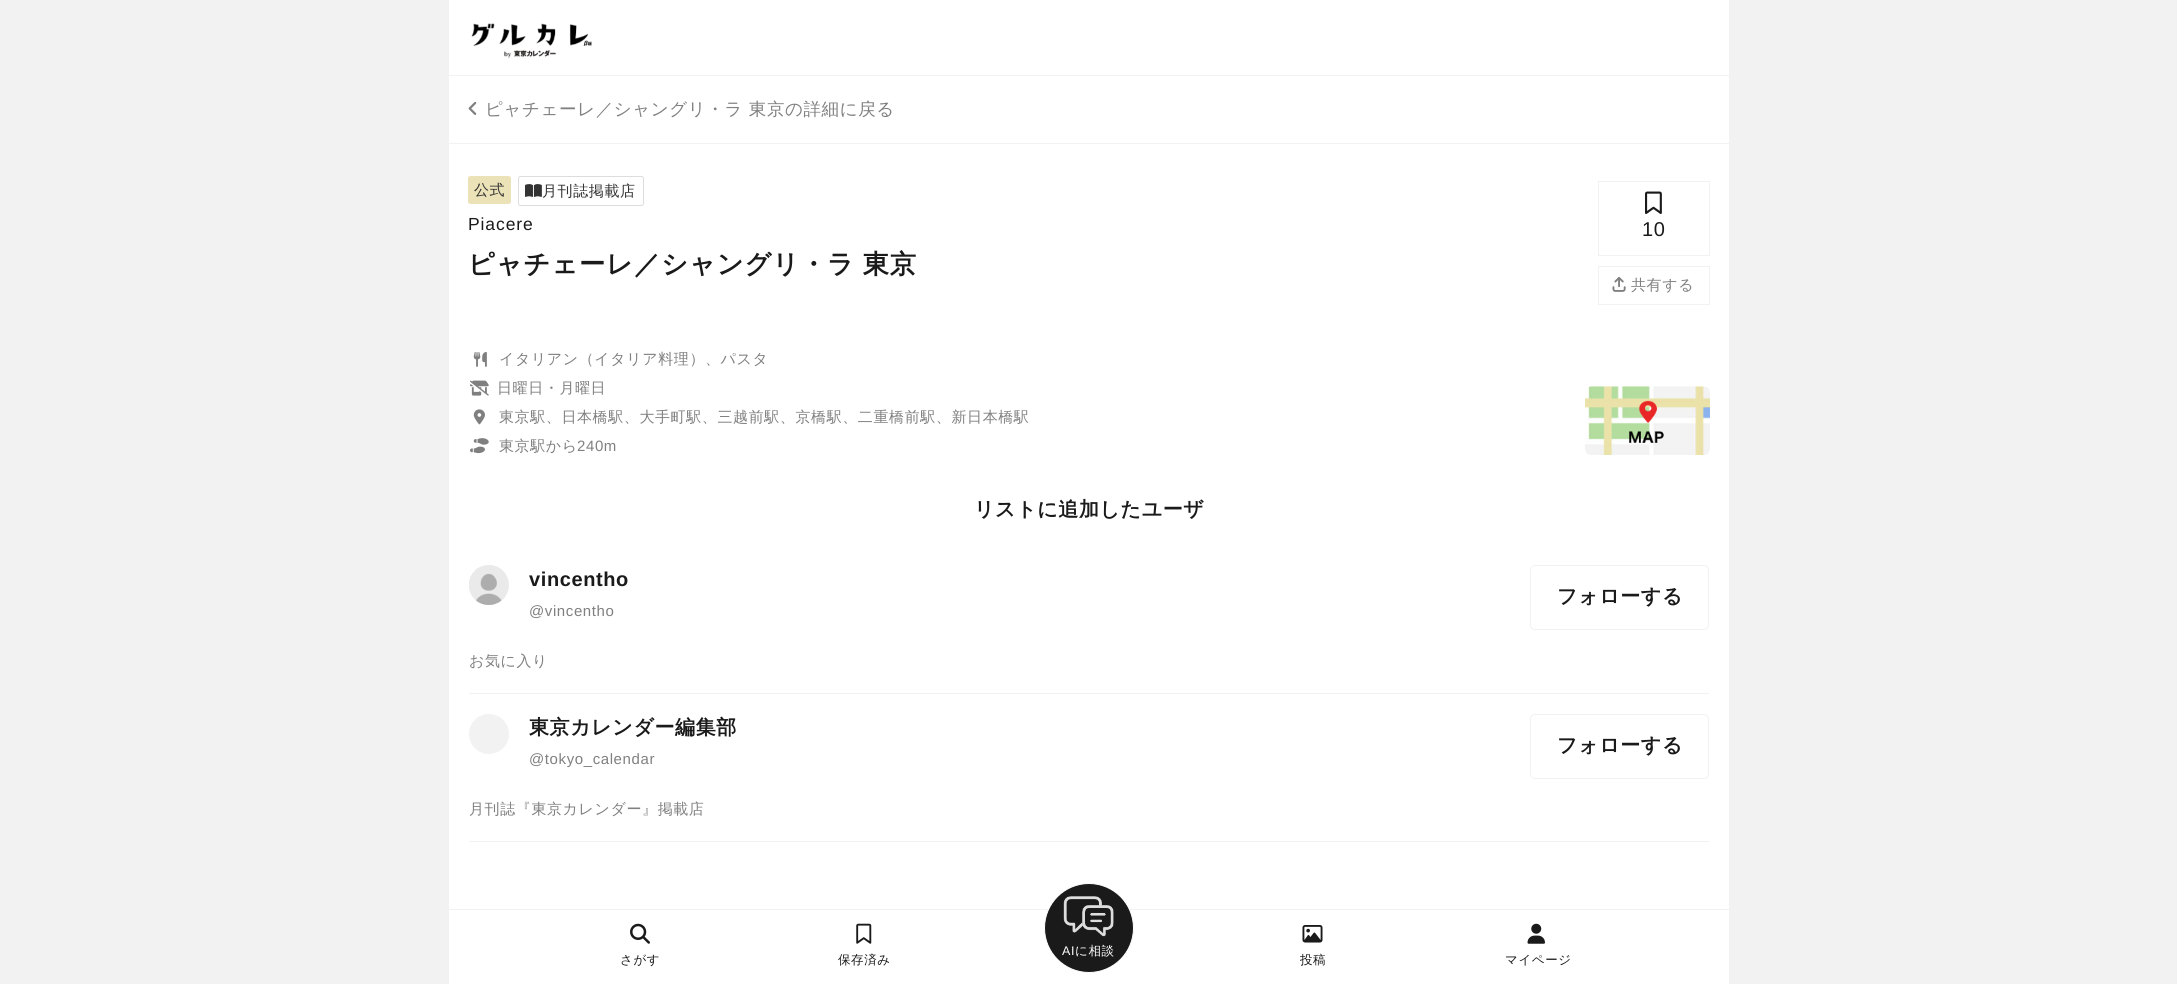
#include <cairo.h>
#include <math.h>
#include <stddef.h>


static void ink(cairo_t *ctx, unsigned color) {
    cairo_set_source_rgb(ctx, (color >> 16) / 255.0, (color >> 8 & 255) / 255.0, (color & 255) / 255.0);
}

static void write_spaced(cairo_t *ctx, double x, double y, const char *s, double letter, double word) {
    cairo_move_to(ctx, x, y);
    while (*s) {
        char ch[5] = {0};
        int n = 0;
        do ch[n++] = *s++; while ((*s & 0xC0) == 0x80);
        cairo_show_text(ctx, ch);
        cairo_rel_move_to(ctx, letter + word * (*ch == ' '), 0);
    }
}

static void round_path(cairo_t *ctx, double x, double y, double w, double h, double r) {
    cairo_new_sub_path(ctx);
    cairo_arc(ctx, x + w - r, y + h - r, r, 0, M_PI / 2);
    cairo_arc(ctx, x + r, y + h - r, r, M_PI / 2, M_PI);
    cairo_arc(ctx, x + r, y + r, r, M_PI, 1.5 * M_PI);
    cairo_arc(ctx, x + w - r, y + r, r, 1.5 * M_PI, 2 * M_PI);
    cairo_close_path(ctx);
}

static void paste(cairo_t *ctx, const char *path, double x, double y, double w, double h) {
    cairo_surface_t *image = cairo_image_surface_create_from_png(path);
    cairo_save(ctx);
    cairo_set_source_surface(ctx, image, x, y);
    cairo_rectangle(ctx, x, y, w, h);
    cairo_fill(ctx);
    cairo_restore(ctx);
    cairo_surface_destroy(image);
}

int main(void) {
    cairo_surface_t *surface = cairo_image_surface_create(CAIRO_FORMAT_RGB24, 2177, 984);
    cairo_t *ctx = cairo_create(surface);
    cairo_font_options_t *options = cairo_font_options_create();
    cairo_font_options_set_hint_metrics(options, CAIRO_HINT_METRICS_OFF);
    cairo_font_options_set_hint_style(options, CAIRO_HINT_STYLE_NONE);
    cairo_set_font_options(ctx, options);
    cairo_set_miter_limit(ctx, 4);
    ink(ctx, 0xF2F2F2);
    cairo_paint(ctx);
    ink(ctx, 0xFFFFFF);
    cairo_rectangle(ctx, 449, 0, 1280, 984);
    cairo_fill(ctx);
    ink(ctx, 0xF2F2F2);
    cairo_rectangle(ctx, 449, 75, 1280, 1);
    cairo_fill(ctx);
    paste(ctx, "media/1.png", 471, 23, 121, 35);
    cairo_rectangle(ctx, 449, 143, 1280, 1);
    cairo_fill(ctx);
    paste(ctx, "media/2.png", 468, 101, 9, 14);
    cairo_select_font_face(ctx, "WenQuanYi Zen Hei Medium", CAIRO_FONT_SLANT_NORMAL, CAIRO_FONT_WEIGHT_NORMAL);
    cairo_set_font_size(ctx, 17.5);
    ink(ctx, 0x808080);
    write_spaced(ctx, 485, 115, "ピャチェーレ／シャングリ・ラ 東京の詳細に戻る", 0.6, 0);
    ink(ctx, 0xEBE2B7);
    round_path(ctx, 468, 176, 43, 28, 2.5);
    cairo_fill(ctx);
    cairo_set_font_size(ctx, 15);
    ink(ctx, 0x333333);
    write_spaced(ctx, 474, 195, "公式", 0.6, 0);
    round_path(ctx, 518.5, 176.5, 125, 29, 2);
    ink(ctx, 0xDDDDDD);
    cairo_set_line_width(ctx, 1);
    cairo_stroke(ctx);
    paste(ctx, "media/3.png", 525, 184, 17, 13);
    ink(ctx, 0x333333);
    write_spaced(ctx, 542, 196, "月刊誌掲載店", 0.6, 0);
    cairo_select_font_face(ctx, "Liberation Sans", CAIRO_FONT_SLANT_NORMAL, CAIRO_FONT_WEIGHT_NORMAL);
    cairo_set_font_size(ctx, 17.5);
    ink(ctx, 0x1A1A1A);
    write_spaced(ctx, 468, 230, "Piacere", 0.9, 0);
    cairo_select_font_face(ctx, "WenQuanYi Zen Hei", CAIRO_FONT_SLANT_NORMAL, CAIRO_FONT_WEIGHT_BOLD);
    cairo_set_font_size(ctx, 26.25);
    write_spaced(ctx, 468, 273, "ピャチェーレ／シャングリ・ラ 東京", 0.9, -1);
    cairo_rectangle(ctx, 1598.5, 181.5, 111, 74);
    ink(ctx, 0xF2F2F2);
    cairo_stroke(ctx);
    paste(ctx, "media/4.png", 1645, 191, 17, 23);
    cairo_select_font_face(ctx, "Liberation Sans", CAIRO_FONT_SLANT_NORMAL, CAIRO_FONT_WEIGHT_NORMAL);
    cairo_set_font_size(ctx, 20);
    ink(ctx, 0x1A1A1A);
    write_spaced(ctx, 1642, 236, "10", 0.6, 0);
    cairo_rectangle(ctx, 1598.5, 266.5, 111, 38);
    ink(ctx, 0xF2F2F2);
    cairo_stroke(ctx);
    paste(ctx, "media/5.png", 1612, 277, 14, 15);
    cairo_select_font_face(ctx, "WenQuanYi Zen Hei Medium", CAIRO_FONT_SLANT_NORMAL, CAIRO_FONT_WEIGHT_NORMAL);
    cairo_set_font_size(ctx, 15);
    ink(ctx, 0x808080);
    write_spaced(ctx, 1631, 290, "共有する", 0.6, 0);
    paste(ctx, "media/6.png", 473, 352, 14, 15);
    write_spaced(ctx, 499, 364, "イタリアン（イタリア料理）、パスタ", 0.6, 0);
    paste(ctx, "media/7.png", 470, 380, 19, 16);
    write_spaced(ctx, 497, 393, "日曜日・月曜日", 0.6, 0);
    paste(ctx, "media/8.png", 473, 409, 12, 16);
    write_spaced(ctx, 499, 422, "東京駅、日本橋駅、大手町駅、三越前駅、京橋駅、二重橋前駅、新日本橋駅", 0.6, 0);
    paste(ctx, "media/9.png", 470, 438, 19, 16);
    write_spaced(ctx, 499, 451, "東京駅から", 0.6, 0);
    cairo_select_font_face(ctx, "Liberation Sans", CAIRO_FONT_SLANT_NORMAL, CAIRO_FONT_WEIGHT_NORMAL);
    write_spaced(ctx, 577, 451, "240m", 0.6, 0);
    paste(ctx, "media/10.png", 1585, 386, 125, 69);
    cairo_select_font_face(ctx, "WenQuanYi Zen Hei", CAIRO_FONT_SLANT_NORMAL, CAIRO_FONT_WEIGHT_BOLD);
    cairo_set_font_size(ctx, 20);
    ink(ctx, 0x1A1A1A);
    write_spaced(ctx, 974, 516, "リストに追加したユーザ", 0.6, 0);
    ink(ctx, 0xF2F2F2);
    cairo_rectangle(ctx, 469, 693, 1240, 1);
    cairo_fill(ctx);
    cairo_arc(ctx, 489, 585, 20, 0, 2 * M_PI);
    cairo_fill(ctx);
    paste(ctx, "media/11.png", 469, 565, 40, 40);
    cairo_select_font_face(ctx, "Liberation Sans", CAIRO_FONT_SLANT_NORMAL, CAIRO_FONT_WEIGHT_BOLD);
    ink(ctx, 0x1A1A1A);
    write_spaced(ctx, 529, 586, "vincentho", 0.6, 0);
    cairo_select_font_face(ctx, "Liberation Sans", CAIRO_FONT_SLANT_NORMAL, CAIRO_FONT_WEIGHT_NORMAL);
    cairo_set_font_size(ctx, 15);
    ink(ctx, 0x808080);
    write_spaced(ctx, 529, 616, "@vincentho", 0.6, 0);
    round_path(ctx, 1530.5, 565.5, 178, 64, 4.5);
    ink(ctx, 0xF2F2F2);
    cairo_stroke(ctx);
    cairo_select_font_face(ctx, "WenQuanYi Zen Hei", CAIRO_FONT_SLANT_NORMAL, CAIRO_FONT_WEIGHT_BOLD);
    cairo_set_font_size(ctx, 20);
    ink(ctx, 0x1A1A1A);
    write_spaced(ctx, 1557, 603, "フォローする", 0.6, 0);
    cairo_select_font_face(ctx, "WenQuanYi Zen Hei Medium", CAIRO_FONT_SLANT_NORMAL, CAIRO_FONT_WEIGHT_NORMAL);
    cairo_set_font_size(ctx, 15);
    ink(ctx, 0x808080);
    write_spaced(ctx, 469, 666, "お気に入り", 0.6, 0);
    ink(ctx, 0xF2F2F2);
    cairo_rectangle(ctx, 469, 841, 1240, 1);
    cairo_fill(ctx);
    cairo_arc(ctx, 489, 734, 20, 0, 2 * M_PI);
    cairo_fill(ctx);
    cairo_select_font_face(ctx, "WenQuanYi Zen Hei", CAIRO_FONT_SLANT_NORMAL, CAIRO_FONT_WEIGHT_BOLD);
    cairo_set_font_size(ctx, 20);
    ink(ctx, 0x1A1A1A);
    write_spaced(ctx, 529, 734, "東京カレンダー編集部", 0.6, 0);
    cairo_select_font_face(ctx, "Liberation Sans", CAIRO_FONT_SLANT_NORMAL, CAIRO_FONT_WEIGHT_NORMAL);
    cairo_set_font_size(ctx, 15);
    ink(ctx, 0x808080);
    write_spaced(ctx, 529, 764, "@tokyo_calendar", 0.6, 0);
    round_path(ctx, 1530.5, 714.5, 178, 64, 4.5);
    ink(ctx, 0xF2F2F2);
    cairo_stroke(ctx);
    cairo_select_font_face(ctx, "WenQuanYi Zen Hei", CAIRO_FONT_SLANT_NORMAL, CAIRO_FONT_WEIGHT_BOLD);
    cairo_set_font_size(ctx, 20);
    ink(ctx, 0x1A1A1A);
    write_spaced(ctx, 1557, 752, "フォローする", 0.6, 0);
    cairo_select_font_face(ctx, "WenQuanYi Zen Hei Medium", CAIRO_FONT_SLANT_NORMAL, CAIRO_FONT_WEIGHT_NORMAL);
    cairo_set_font_size(ctx, 15);
    ink(ctx, 0x808080);
    write_spaced(ctx, 469, 814, "月刊誌『東京カレンダー』掲載店", 0.6, 0);
    ink(ctx, 0xF2F2F2);
    cairo_rectangle(ctx, 449, 909, 1280, 1);
    cairo_fill(ctx);
    ink(ctx, 0x1A1A1A);
    cairo_arc(ctx, 1089, 928, 44.5, 0, 2 * M_PI);
    cairo_fill_preserve(ctx);
    ink(ctx, 0xFFFFFF);
    cairo_stroke(ctx);
    paste(ctx, "media/12.png", 1063, 896, 51, 41);
    cairo_select_font_face(ctx, "Liberation Sans", CAIRO_FONT_SLANT_NORMAL, CAIRO_FONT_WEIGHT_NORMAL);
    cairo_set_font_size(ctx, 12.5);
    write_spaced(ctx, 1062, 955, "AI", 0.6, 0);
    cairo_select_font_face(ctx, "WenQuanYi Zen Hei Medium", CAIRO_FONT_SLANT_NORMAL, CAIRO_FONT_WEIGHT_NORMAL);
    write_spaced(ctx, 1075, 955, "に相談", 0.6, 0);
    paste(ctx, "media/13.png", 630, 923, 20, 21);
    ink(ctx, 0x1A1A1A);
    write_spaced(ctx, 620, 964, "さがす", 0.6, 0);
    paste(ctx, "media/14.png", 856, 923, 16, 21);
    write_spaced(ctx, 838, 964, "保存済み", 0.6, 0);
    paste(ctx, "media/15.png", 1302, 925, 21, 18);
    write_spaced(ctx, 1300, 964, "投稿", 0.6, 0);
    paste(ctx, "media/16.png", 1527, 923, 18, 21);
    write_spaced(ctx, 1505, 964, "マイページ", 0.6, 0);
    cairo_surface_write_to_png(surface, "image.png");
    cairo_font_options_destroy(options);
    cairo_destroy(ctx);
    cairo_surface_destroy(surface);
    return 0;
}
